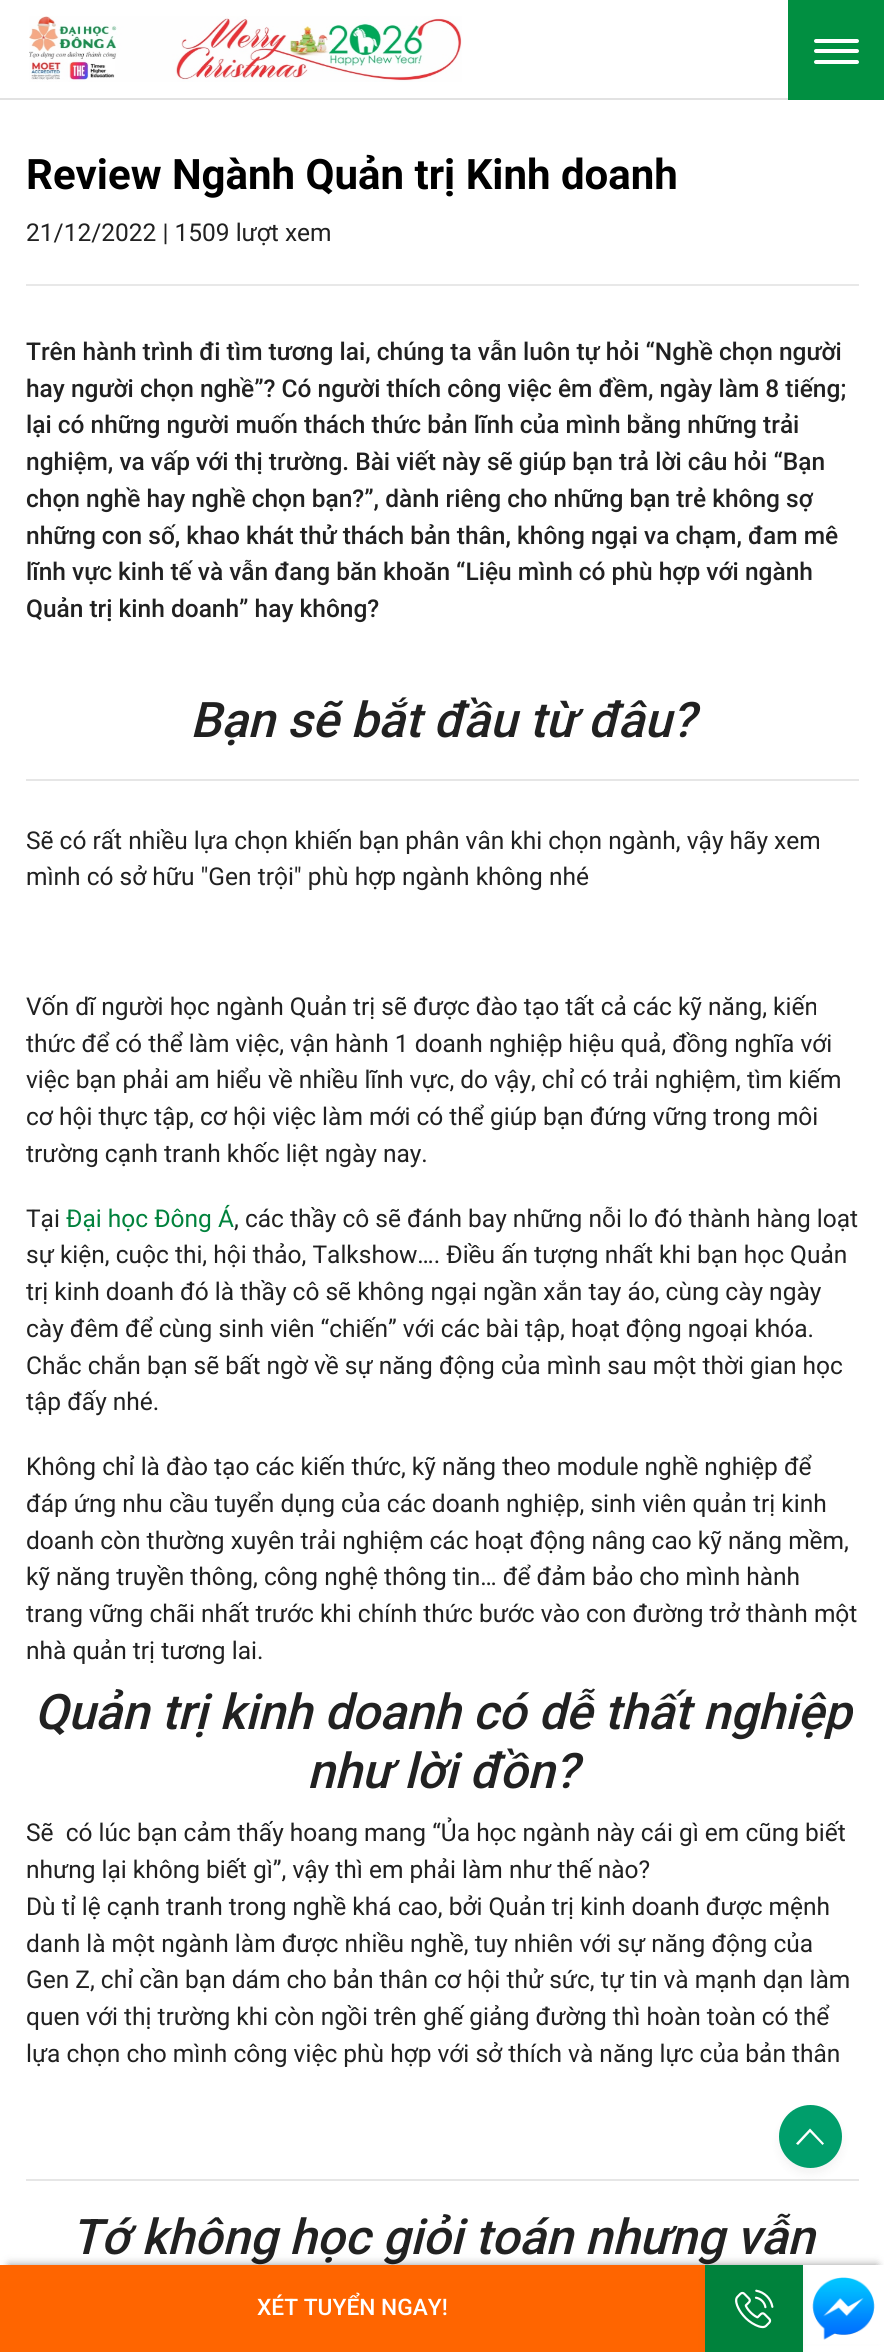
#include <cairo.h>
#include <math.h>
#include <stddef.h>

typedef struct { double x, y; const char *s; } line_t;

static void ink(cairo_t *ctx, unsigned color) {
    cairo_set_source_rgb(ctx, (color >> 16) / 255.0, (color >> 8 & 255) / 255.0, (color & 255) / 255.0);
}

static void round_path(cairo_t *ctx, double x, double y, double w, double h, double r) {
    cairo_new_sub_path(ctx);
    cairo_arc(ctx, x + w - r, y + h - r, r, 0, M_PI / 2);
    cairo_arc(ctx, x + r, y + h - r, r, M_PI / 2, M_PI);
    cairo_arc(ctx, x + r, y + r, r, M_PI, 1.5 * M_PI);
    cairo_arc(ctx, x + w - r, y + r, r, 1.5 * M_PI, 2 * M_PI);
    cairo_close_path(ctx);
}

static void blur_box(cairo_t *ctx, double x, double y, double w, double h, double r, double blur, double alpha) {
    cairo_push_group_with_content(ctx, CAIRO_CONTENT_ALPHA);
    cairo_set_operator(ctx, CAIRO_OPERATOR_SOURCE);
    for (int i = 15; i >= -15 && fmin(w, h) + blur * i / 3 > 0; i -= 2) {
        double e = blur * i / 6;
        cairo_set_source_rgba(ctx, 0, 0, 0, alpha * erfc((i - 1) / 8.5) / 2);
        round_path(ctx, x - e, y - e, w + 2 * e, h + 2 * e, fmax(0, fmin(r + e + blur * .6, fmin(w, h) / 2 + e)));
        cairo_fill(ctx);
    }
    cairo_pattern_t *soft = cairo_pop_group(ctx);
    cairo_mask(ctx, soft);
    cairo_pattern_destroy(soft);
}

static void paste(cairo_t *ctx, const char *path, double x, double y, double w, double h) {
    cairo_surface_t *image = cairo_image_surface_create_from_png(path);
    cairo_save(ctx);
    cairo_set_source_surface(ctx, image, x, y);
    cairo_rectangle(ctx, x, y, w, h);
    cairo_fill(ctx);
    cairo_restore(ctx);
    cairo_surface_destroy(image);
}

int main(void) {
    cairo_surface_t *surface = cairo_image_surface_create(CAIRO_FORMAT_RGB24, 884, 2352);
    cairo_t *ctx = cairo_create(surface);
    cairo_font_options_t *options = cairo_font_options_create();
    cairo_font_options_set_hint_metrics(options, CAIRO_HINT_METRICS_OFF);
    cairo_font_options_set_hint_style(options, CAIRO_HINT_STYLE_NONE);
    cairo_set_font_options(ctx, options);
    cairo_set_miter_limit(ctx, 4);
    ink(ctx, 0xFFFFFF);
    cairo_paint(ctx);
    ink(ctx, 0xE2E2E2);
    cairo_rectangle(ctx, 0, 98, 788, 2);
    cairo_fill(ctx);
    paste(ctx, "media/1.png", 29, 16, 433, 66);
    ink(ctx, 0x018F41);
    cairo_rectangle(ctx, 788, 0, 96, 100);
    cairo_fill(ctx);
    ink(ctx, 0xFFFFFF);
    round_path(ctx, 814, 39, 45, 4, 2);
    cairo_fill(ctx);
    round_path(ctx, 814, 49, 45, 4, 2);
    cairo_fill(ctx);
    round_path(ctx, 814, 60, 45, 4, 2);
    cairo_fill(ctx);
    ink(ctx, 0xE8E8E8);
    cairo_rectangle(ctx, 26, 284, 833, 2);
    cairo_fill(ctx);
    cairo_select_font_face(ctx, "Roboto", CAIRO_FONT_SLANT_NORMAL, CAIRO_FONT_WEIGHT_BOLD);
    cairo_set_font_size(ctx, 42);
    ink(ctx, 0x000000);
    cairo_move_to(ctx, 26, 189);
    cairo_show_text(ctx, "Review Ngành Quản trị Kinh doanh");
    cairo_select_font_face(ctx, "Roboto", CAIRO_FONT_SLANT_NORMAL, CAIRO_FONT_WEIGHT_NORMAL);
    cairo_set_font_size(ctx, 24.5);
    ink(ctx, 0x212121);
    cairo_move_to(ctx, 26, 241);
    cairo_show_text(ctx, "21/12/2022 | 1509 lượt xem");
    cairo_select_font_face(ctx, "Roboto Medium", CAIRO_FONT_SLANT_NORMAL, CAIRO_FONT_WEIGHT_NORMAL);
    {
        static const line_t items[] = {
            {26, 360, "Trên hành trình đi tìm tương lai, chúng ta vẫn luôn tự hỏi “Nghề chọn người"},
            {26, 397, "hay người chọn nghề”? Có người thích công việc êm đềm, ngày làm 8 tiếng;"},
            {26, 433, "lại có những người muốn thách thức bản lĩnh của mình bằng những trải"},
            {26, 470, "nghiệm, va vấp với thị trường. Bài viết này sẽ giúp bạn trả lời câu hỏi “Bạn"},
            {26, 507, "chọn nghề hay nghề chọn bạn?”, dành riêng cho những bạn trẻ không sợ"},
            {26, 544, "những con số, khao khát thử thách bản thân, không ngại va chạm, đam mê"},
            {26, 580, "lĩnh vực kinh tế và vẫn đang băn khoăn “Liệu mình có phù hợp với ngành"},
            {26, 617, "Quản trị kinh doanh” hay không?"},
        };
        for (size_t i = 0; i < sizeof items / sizeof *items; i++) {
            cairo_move_to(ctx, items[i].x, items[i].y);
            cairo_show_text(ctx, items[i].s);
        }
    }
    cairo_select_font_face(ctx, "Roboto Medium", CAIRO_FONT_SLANT_ITALIC, CAIRO_FONT_WEIGHT_NORMAL);
    cairo_set_font_size(ctx, 49);
    cairo_move_to(ctx, 190, 737);
    cairo_show_text(ctx, "Bạn sẽ bắt đầu từ đâu?");
    ink(ctx, 0xE6E6E6);
    cairo_rectangle(ctx, 26, 779, 833, 2);
    cairo_fill(ctx);
    cairo_select_font_face(ctx, "Roboto", CAIRO_FONT_SLANT_NORMAL, CAIRO_FONT_WEIGHT_NORMAL);
    cairo_set_font_size(ctx, 24.5);
    ink(ctx, 0x212121);
    {
        static const line_t items[] = {
            {26, 849, "Sẽ có rất nhiều lựa chọn khiến bạn phân vân khi chọn ngành, vậy hãy xem"},
            {26, 885, "mình có sở hữu \"Gen trội\" phù hợp ngành không nhé"},
            {26, 1015, "Vốn dĩ người học ngành Quản trị sẽ được đào tạo tất cả các kỹ năng, kiến"},
            {26, 1052, "thức để có thể làm việc, vận hành 1 doanh nghiệp hiệu quả, đồng nghĩa với"},
            {26, 1088, "việc bạn phải am hiểu về nhiều lĩnh vực, do vậy, chỉ có trải nghiệm, tìm kiếm"},
            {26, 1125, "cơ hội thực tập, cơ hội việc làm mới có thể giúp bạn đứng vững trong môi"},
            {26, 1162, "trường cạnh tranh khốc liệt ngày nay."},
            {26, 1227, "Tại"},
        };
        for (size_t i = 0; i < sizeof items / sizeof *items; i++) {
            cairo_move_to(ctx, items[i].x, items[i].y);
            cairo_show_text(ctx, items[i].s);
        }
    }
    ink(ctx, 0x01823C);
    cairo_move_to(ctx, 66, 1227);
    cairo_show_text(ctx, "Đại học Đông Á");
    ink(ctx, 0x212121);
    {
        static const line_t items[] = {
            {234, 1227, ", các thầy cô sẽ đánh bay những nỗi lo đó thành hàng loạt"},
            {26, 1263, "sự kiện, cuộc thi, hội thảo, Talkshow…. Điều ấn tượng nhất khi bạn học Quản"},
            {26, 1300, "trị kinh doanh đó là thầy cô sẽ không ngại ngần xắn tay áo, cùng cày ngày"},
            {26, 1337, "cày đêm để cùng sinh viên “chiến” với các bài tập, hoạt động ngoại khóa."},
            {26, 1374, "Chắc chắn bạn sẽ bất ngờ về sự năng động của mình sau một thời gian học"},
            {26, 1410, "tập đấy nhé."},
            {26, 1475, "Không chỉ là đào tạo các kiến thức, kỹ năng theo module nghề nghiệp để"},
            {26, 1512, "đáp ứng nhu cầu tuyển dụng của các doanh nghiệp, sinh viên quản trị kinh"},
            {26, 1549, "doanh còn thường xuyên trải nghiệm các hoạt động nâng cao kỹ năng mềm,"},
            {26, 1585, "kỹ năng truyền thông, công nghệ thông tin… để đảm bảo cho mình hành"},
            {26, 1622, "trang vững chãi nhất trước khi chính thức bước vào con đường trở thành một"},
            {26, 1659, "nhà quản trị tương lai."},
        };
        for (size_t i = 0; i < sizeof items / sizeof *items; i++) {
            cairo_move_to(ctx, items[i].x, items[i].y);
            cairo_show_text(ctx, items[i].s);
        }
    }
    cairo_select_font_face(ctx, "Roboto Medium", CAIRO_FONT_SLANT_ITALIC, CAIRO_FONT_WEIGHT_NORMAL);
    cairo_set_font_size(ctx, 49);
    cairo_move_to(ctx, 34, 1729);
    cairo_show_text(ctx, "Quản trị kinh doanh có dễ thất nghiệp");
    cairo_move_to(ctx, 307, 1788);
    cairo_show_text(ctx, "như lời đồn?");
    cairo_select_font_face(ctx, "Roboto", CAIRO_FONT_SLANT_NORMAL, CAIRO_FONT_WEIGHT_NORMAL);
    cairo_set_font_size(ctx, 24.5);
    {
        static const line_t items[] = {
            {26, 1841, "Sẽ  có lúc bạn cảm thấy hoang mang “Ủa học ngành này cái gì em cũng biết"},
            {26, 1878, "nhưng lại không biết gì”, vậy thì em phải làm như thế nào?"},
            {26, 1915, "Dù tỉ lệ cạnh tranh trong nghề khá cao, bởi Quản trị kinh doanh được mệnh"},
            {26, 1952, "danh là một ngành làm được nhiều nghề, tuy nhiên với sự năng động của"},
            {26, 1988, "Gen Z, chỉ cần bạn dám cho bản thân cơ hội thử sức, tự tin và mạnh dạn làm"},
            {26, 2025, "quen với thị trường khi còn ngồi trên ghế giảng đường thì hoàn toàn có thể"},
            {26, 2062, "lựa chọn cho mình công việc phù hợp với sở thích và năng lực của bản thân"},
        };
        for (size_t i = 0; i < sizeof items / sizeof *items; i++) {
            cairo_move_to(ctx, items[i].x, items[i].y);
            cairo_show_text(ctx, items[i].s);
        }
    }
    ink(ctx, 0xE6E6E6);
    cairo_rectangle(ctx, 26, 2179, 833, 2);
    cairo_fill(ctx);
    cairo_select_font_face(ctx, "Roboto Medium", CAIRO_FONT_SLANT_ITALIC, CAIRO_FONT_WEIGHT_NORMAL);
    cairo_set_font_size(ctx, 49);
    ink(ctx, 0x212121);
    cairo_move_to(ctx, 71, 2254);
    cairo_show_text(ctx, "Tớ không học giỏi toán nhưng vẫn");
    ink(ctx, 0x000000);
    blur_box(ctx, 779, 2111, 63, 63, 31.5, 4.5, 0.05);
    ink(ctx, 0x009E6B);
    cairo_arc(ctx, 810.5, 2136.5, 31.5, 0, 2 * M_PI);
    cairo_fill(ctx);
    ink(ctx, 0xFFFFFF);
    cairo_new_path(ctx);
    cairo_move_to(ctx, 798, 2145);
    cairo_line_to(ctx, 796, 2143.5);
    cairo_line_to(ctx, 810, 2128.5);
    cairo_line_to(ctx, 824, 2143.5);
    cairo_line_to(ctx, 822.5, 2145);
    cairo_line_to(ctx, 810, 2132);
    cairo_close_path(ctx);
    cairo_fill(ctx);
    ink(ctx, 0x000000);
    blur_box(ctx, 9, 2265, 868, 70, 0, 4.5, 0.4);
    ink(ctx, 0xFF6500);
    cairo_rectangle(ctx, 0, 2265, 705, 87);
    cairo_fill(ctx);
    cairo_select_font_face(ctx, "Roboto Medium", CAIRO_FONT_SLANT_NORMAL, CAIRO_FONT_WEIGHT_NORMAL);
    cairo_set_font_size(ctx, 22.75);
    ink(ctx, 0xFFFFFF);
    cairo_move_to(ctx, 257, 2315);
    cairo_show_text(ctx, "XÉT TUYỂN NGAY!");
    cairo_rectangle(ctx, 803, 2265, 81, 79);
    cairo_fill(ctx);
    paste(ctx, "media/3.png", 812, 2277, 63, 63);
    ink(ctx, 0x000000);
    blur_box(ctx, 705, 2270, 98, 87, 0, 4.5, 0.05);
    ink(ctx, 0x00823C);
    cairo_rectangle(ctx, 705, 2265, 98, 87);
    cairo_fill(ctx);
    paste(ctx, "media/2.png", 735, 2289, 39, 40);
    cairo_surface_write_to_png(surface, "image.png");
    cairo_font_options_destroy(options);
    cairo_destroy(ctx);
    cairo_surface_destroy(surface);
    return 0;
}
